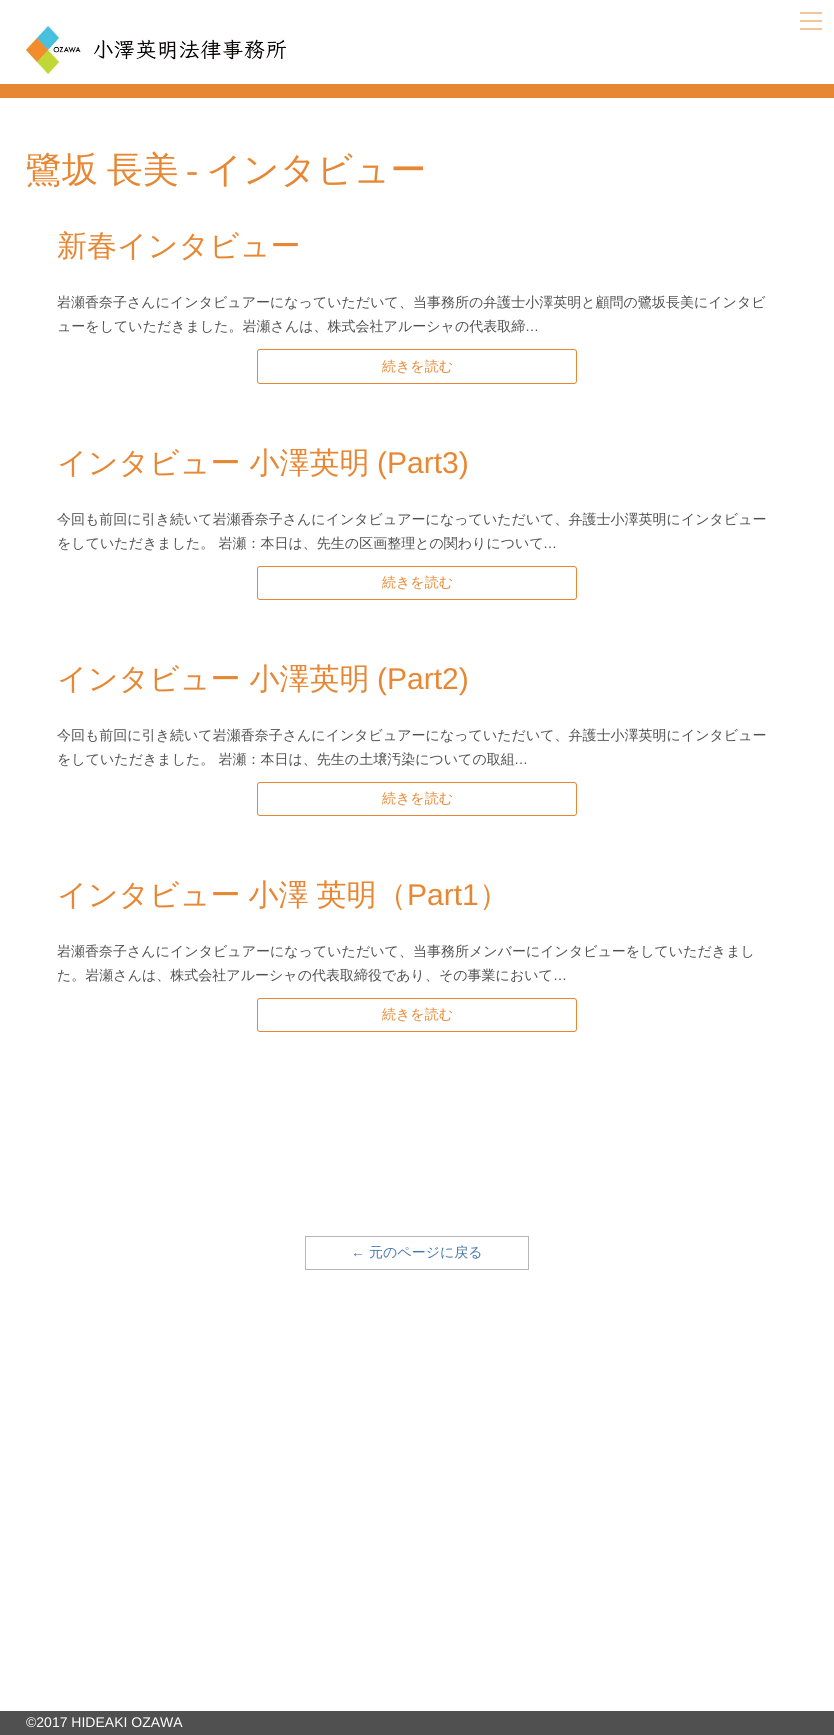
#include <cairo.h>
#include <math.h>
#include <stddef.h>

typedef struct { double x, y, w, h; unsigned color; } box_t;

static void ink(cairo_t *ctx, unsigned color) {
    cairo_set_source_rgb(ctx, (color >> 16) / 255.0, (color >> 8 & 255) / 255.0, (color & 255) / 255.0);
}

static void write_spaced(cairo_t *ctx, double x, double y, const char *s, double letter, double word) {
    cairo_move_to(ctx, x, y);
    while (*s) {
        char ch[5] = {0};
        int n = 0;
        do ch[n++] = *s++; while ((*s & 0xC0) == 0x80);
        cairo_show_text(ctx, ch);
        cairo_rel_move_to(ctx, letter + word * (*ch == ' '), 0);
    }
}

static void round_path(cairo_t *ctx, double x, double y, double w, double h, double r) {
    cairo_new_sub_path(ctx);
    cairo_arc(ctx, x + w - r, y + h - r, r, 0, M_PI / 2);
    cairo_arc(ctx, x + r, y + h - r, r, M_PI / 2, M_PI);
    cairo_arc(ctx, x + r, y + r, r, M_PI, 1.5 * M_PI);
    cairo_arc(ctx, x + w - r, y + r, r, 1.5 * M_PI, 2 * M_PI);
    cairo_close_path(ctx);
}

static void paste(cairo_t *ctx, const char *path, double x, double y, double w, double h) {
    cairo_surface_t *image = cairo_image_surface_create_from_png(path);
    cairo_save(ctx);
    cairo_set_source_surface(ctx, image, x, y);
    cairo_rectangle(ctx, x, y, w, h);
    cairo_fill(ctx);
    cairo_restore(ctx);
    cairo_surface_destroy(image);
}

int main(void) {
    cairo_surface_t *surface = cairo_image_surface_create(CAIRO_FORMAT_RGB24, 834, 1735);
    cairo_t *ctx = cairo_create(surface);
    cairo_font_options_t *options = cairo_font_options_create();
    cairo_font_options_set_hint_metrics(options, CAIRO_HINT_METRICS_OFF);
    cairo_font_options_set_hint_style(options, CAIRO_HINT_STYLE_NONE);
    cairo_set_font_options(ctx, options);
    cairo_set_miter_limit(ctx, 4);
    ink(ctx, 0xFFFFFF);
    cairo_paint(ctx);
    {
        static const box_t items[] = {
            {800, 12, 22, 2, 0xF3C399},
            {800, 20, 22, 2, 0xF3C399},
            {800, 28, 22, 2, 0xF3C399},
        };
        for (size_t i = 0; i < sizeof items / sizeof *items; i++) {
            ink(ctx, items[i].color);
            cairo_rectangle(ctx, items[i].x, items[i].y, items[i].w, items[i].h);
            cairo_fill(ctx);
        }
    }
    paste(ctx, "media/1.png", 26, 26, 260, 48);
    ink(ctx, 0xE78733);
    cairo_rectangle(ctx, 0, 84, 834, 14);
    cairo_fill(ctx);
    cairo_select_font_face(ctx, "WenQuanYi Zen Hei Medium", CAIRO_FONT_SLANT_NORMAL, CAIRO_FONT_WEIGHT_NORMAL);
    cairo_set_font_size(ctx, 36);
    write_spaced(ctx, 26, 182, "鷺坂 長美", 0, -2);
    cairo_select_font_face(ctx, "Liberation Serif", CAIRO_FONT_SLANT_NORMAL, CAIRO_FONT_WEIGHT_NORMAL);
    cairo_move_to(ctx, 186, 182);
    cairo_show_text(ctx, "-");
    cairo_select_font_face(ctx, "WenQuanYi Zen Hei Medium", CAIRO_FONT_SLANT_NORMAL, CAIRO_FONT_WEIGHT_NORMAL);
    cairo_move_to(ctx, 206, 182);
    cairo_show_text(ctx, "インタビュー");
    cairo_set_font_size(ctx, 30);
    cairo_move_to(ctx, 57, 256);
    cairo_show_text(ctx, "新春インタビュー");
    cairo_set_font_size(ctx, 14);
    ink(ctx, 0x505050);
    cairo_move_to(ctx, 57, 307);
    cairo_show_text(ctx, "岩瀬香奈子さんにインタビュアーになっていただいて、当事務所の弁護士小澤英明と顧問の鷺坂長美にインタビ");
    cairo_move_to(ctx, 57, 331);
    cairo_show_text(ctx, "ューをしていただきました。岩瀬さんは、株式会社アルーシャの代表取締");
    cairo_select_font_face(ctx, "Liberation Sans", CAIRO_FONT_SLANT_NORMAL, CAIRO_FONT_WEIGHT_NORMAL);
    cairo_move_to(ctx, 525, 331);
    cairo_show_text(ctx, "…");
    round_path(ctx, 257.5, 349.5, 319, 34, 2.5);
    ink(ctx, 0xE78733);
    cairo_set_line_width(ctx, 1);
    cairo_stroke(ctx);
    cairo_select_font_face(ctx, "WenQuanYi Zen Hei Medium", CAIRO_FONT_SLANT_NORMAL, CAIRO_FONT_WEIGHT_NORMAL);
    cairo_move_to(ctx, 382, 371);
    cairo_show_text(ctx, "続きを読む");
    cairo_set_font_size(ctx, 30);
    cairo_move_to(ctx, 57, 473);
    cairo_show_text(ctx, "インタビュー 小澤英明");
    cairo_select_font_face(ctx, "Liberation Sans", CAIRO_FONT_SLANT_NORMAL, CAIRO_FONT_WEIGHT_NORMAL);
    cairo_move_to(ctx, 377, 473);
    cairo_show_text(ctx, "(Part3)");
    cairo_select_font_face(ctx, "WenQuanYi Zen Hei Medium", CAIRO_FONT_SLANT_NORMAL, CAIRO_FONT_WEIGHT_NORMAL);
    cairo_set_font_size(ctx, 14);
    ink(ctx, 0x505050);
    cairo_move_to(ctx, 57, 524);
    cairo_show_text(ctx, "今回も前回に引き続いて岩瀬香奈子さんにインタビュアーになっていただいて、弁護士小澤英明にインタビュー");
    cairo_move_to(ctx, 57, 548);
    cairo_show_text(ctx, "をしていただきました。 岩瀬：本日は、先生の区画整理との関わりについて");
    cairo_select_font_face(ctx, "Liberation Sans", CAIRO_FONT_SLANT_NORMAL, CAIRO_FONT_WEIGHT_NORMAL);
    cairo_move_to(ctx, 543, 548);
    cairo_show_text(ctx, "…");
    round_path(ctx, 257.5, 566.5, 319, 33, 2.5);
    ink(ctx, 0xE78733);
    cairo_stroke(ctx);
    cairo_select_font_face(ctx, "WenQuanYi Zen Hei Medium", CAIRO_FONT_SLANT_NORMAL, CAIRO_FONT_WEIGHT_NORMAL);
    cairo_move_to(ctx, 382, 587);
    cairo_show_text(ctx, "続きを読む");
    cairo_set_font_size(ctx, 30);
    cairo_move_to(ctx, 57, 689);
    cairo_show_text(ctx, "インタビュー 小澤英明");
    cairo_select_font_face(ctx, "Liberation Sans", CAIRO_FONT_SLANT_NORMAL, CAIRO_FONT_WEIGHT_NORMAL);
    cairo_move_to(ctx, 377, 689);
    cairo_show_text(ctx, "(Part2)");
    cairo_select_font_face(ctx, "WenQuanYi Zen Hei Medium", CAIRO_FONT_SLANT_NORMAL, CAIRO_FONT_WEIGHT_NORMAL);
    cairo_set_font_size(ctx, 14);
    ink(ctx, 0x505050);
    cairo_move_to(ctx, 57, 740);
    cairo_show_text(ctx, "今回も前回に引き続いて岩瀬香奈子さんにインタビュアーになっていただいて、弁護士小澤英明にインタビュー");
    cairo_move_to(ctx, 57, 764);
    cairo_show_text(ctx, "をしていただきました。 岩瀬：本日は、先生の土壌汚染についての取組");
    cairo_select_font_face(ctx, "Liberation Sans", CAIRO_FONT_SLANT_NORMAL, CAIRO_FONT_WEIGHT_NORMAL);
    cairo_move_to(ctx, 514, 764);
    cairo_show_text(ctx, "…");
    round_path(ctx, 257.5, 782.5, 319, 33, 2.5);
    ink(ctx, 0xE78733);
    cairo_stroke(ctx);
    cairo_select_font_face(ctx, "WenQuanYi Zen Hei Medium", CAIRO_FONT_SLANT_NORMAL, CAIRO_FONT_WEIGHT_NORMAL);
    cairo_move_to(ctx, 382, 803);
    cairo_show_text(ctx, "続きを読む");
    cairo_set_font_size(ctx, 30);
    write_spaced(ctx, 57, 905, "インタビュー 小澤 英明（", 0, -1);
    cairo_select_font_face(ctx, "Liberation Sans", CAIRO_FONT_SLANT_NORMAL, CAIRO_FONT_WEIGHT_NORMAL);
    cairo_move_to(ctx, 407, 905);
    cairo_show_text(ctx, "Part1");
    cairo_select_font_face(ctx, "WenQuanYi Zen Hei Medium", CAIRO_FONT_SLANT_NORMAL, CAIRO_FONT_WEIGHT_NORMAL);
    cairo_move_to(ctx, 479, 905);
    cairo_show_text(ctx, "）");
    cairo_set_font_size(ctx, 14);
    ink(ctx, 0x505050);
    cairo_move_to(ctx, 57, 956);
    cairo_show_text(ctx, "岩瀬香奈子さんにインタビュアーになっていただいて、当事務所メンバーにインタビューをしていただきまし");
    cairo_move_to(ctx, 57, 980);
    cairo_show_text(ctx, "た。岩瀬さんは、株式会社アルーシャの代表取締役であり、その事業において");
    cairo_select_font_face(ctx, "Liberation Sans", CAIRO_FONT_SLANT_NORMAL, CAIRO_FONT_WEIGHT_NORMAL);
    cairo_move_to(ctx, 553, 980);
    cairo_show_text(ctx, "…");
    round_path(ctx, 257.5, 998.5, 319, 33, 2.5);
    ink(ctx, 0xE78733);
    cairo_stroke(ctx);
    cairo_select_font_face(ctx, "WenQuanYi Zen Hei Medium", CAIRO_FONT_SLANT_NORMAL, CAIRO_FONT_WEIGHT_NORMAL);
    cairo_move_to(ctx, 382, 1019);
    cairo_show_text(ctx, "続きを読む");
    cairo_rectangle(ctx, 305.5, 1236.5, 223, 33);
    ink(ctx, 0xB6B6B6);
    cairo_stroke(ctx);
    cairo_select_font_face(ctx, "Liberation Sans", CAIRO_FONT_SLANT_NORMAL, CAIRO_FONT_WEIGHT_NORMAL);
    ink(ctx, 0x4478B1);
    cairo_move_to(ctx, 351, 1257);
    cairo_show_text(ctx, "←");
    cairo_select_font_face(ctx, "WenQuanYi Zen Hei Medium", CAIRO_FONT_SLANT_NORMAL, CAIRO_FONT_WEIGHT_NORMAL);
    cairo_move_to(ctx, 369, 1257);
    cairo_show_text(ctx, "元のページに戻る");
    ink(ctx, 0x505050);
    cairo_rectangle(ctx, 0, 1711, 834, 24);
    cairo_fill(ctx);
    cairo_select_font_face(ctx, "Liberation Sans", CAIRO_FONT_SLANT_NORMAL, CAIRO_FONT_WEIGHT_NORMAL);
    ink(ctx, 0xFFFFFF);
    cairo_move_to(ctx, 26, 1727);
    cairo_show_text(ctx, "©2017 HIDEAKI OZAWA");
    cairo_surface_write_to_png(surface, "image.png");
    cairo_font_options_destroy(options);
    cairo_destroy(ctx);
    cairo_surface_destroy(surface);
    return 0;
}
